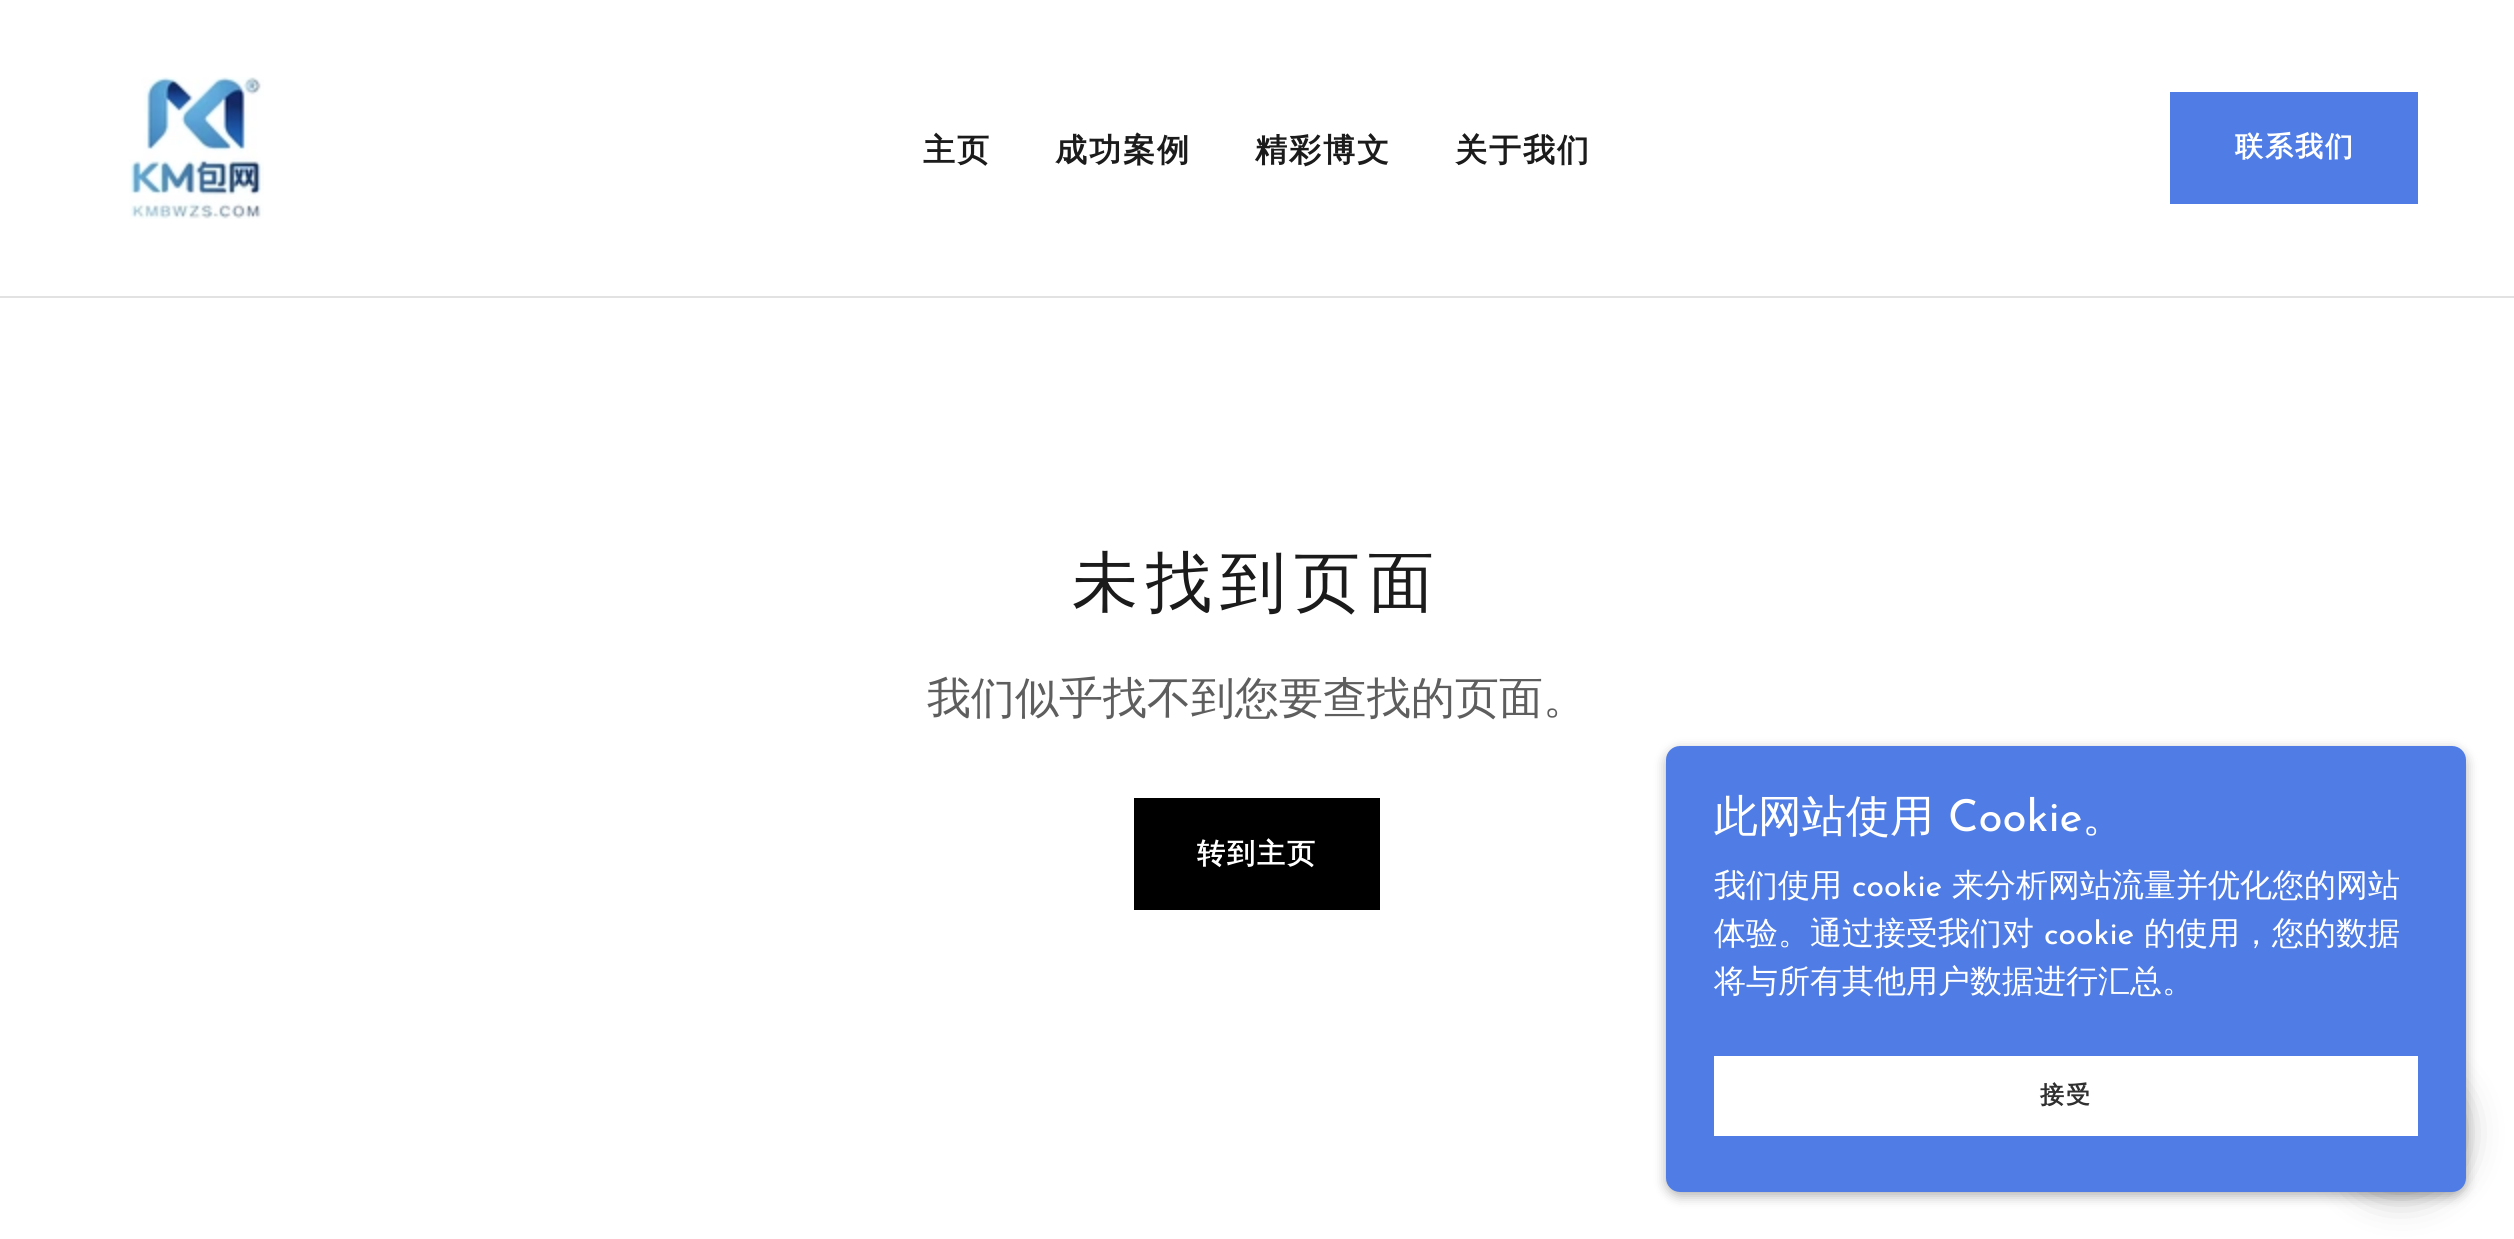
#include <cairo.h>
#include <math.h>
#include <stddef.h>

typedef struct { double x, y; const char *s; } line_t;

static void ink(cairo_t *ctx, unsigned color) {
    cairo_set_source_rgb(ctx, (color >> 16) / 255.0, (color >> 8 & 255) / 255.0, (color & 255) / 255.0);
}

static void write_spaced(cairo_t *ctx, double x, double y, const char *s, double letter, double word) {
    cairo_move_to(ctx, x, y);
    while (*s) {
        char ch[5] = {0};
        int n = 0;
        do ch[n++] = *s++; while ((*s & 0xC0) == 0x80);
        cairo_show_text(ctx, ch);
        cairo_rel_move_to(ctx, letter + word * (*ch == ' '), 0);
    }
}

static void round_path(cairo_t *ctx, double x, double y, double w, double h, double r) {
    cairo_new_sub_path(ctx);
    cairo_arc(ctx, x + w - r, y + h - r, r, 0, M_PI / 2);
    cairo_arc(ctx, x + r, y + h - r, r, M_PI / 2, M_PI);
    cairo_arc(ctx, x + r, y + r, r, M_PI, 1.5 * M_PI);
    cairo_arc(ctx, x + w - r, y + r, r, 1.5 * M_PI, 2 * M_PI);
    cairo_close_path(ctx);
}

static void blur_box(cairo_t *ctx, double x, double y, double w, double h, double r, double blur, double alpha) {
    cairo_push_group_with_content(ctx, CAIRO_CONTENT_ALPHA);
    cairo_set_operator(ctx, CAIRO_OPERATOR_SOURCE);
    for (int i = 15; i >= -15 && fmin(w, h) + blur * i / 3 > 0; i -= 2) {
        double e = blur * i / 6;
        cairo_set_source_rgba(ctx, 0, 0, 0, alpha * erfc((i - 1) / 8.5) / 2);
        round_path(ctx, x - e, y - e, w + 2 * e, h + 2 * e, fmax(0, fmin(r + e + blur * .6, fmin(w, h) / 2 + e)));
        cairo_fill(ctx);
    }
    cairo_pattern_t *soft = cairo_pop_group(ctx);
    cairo_mask(ctx, soft);
    cairo_pattern_destroy(soft);
}

static void paste(cairo_t *ctx, const char *path, double x, double y, double w, double h) {
    cairo_surface_t *image = cairo_image_surface_create_from_png(path);
    cairo_save(ctx);
    cairo_set_source_surface(ctx, image, x, y);
    cairo_rectangle(ctx, x, y, w, h);
    cairo_fill(ctx);
    cairo_restore(ctx);
    cairo_surface_destroy(image);
}

int main(void) {
    cairo_surface_t *surface = cairo_image_surface_create(CAIRO_FORMAT_RGB24, 2514, 1239);
    cairo_t *ctx = cairo_create(surface);
    cairo_font_options_t *options = cairo_font_options_create();
    cairo_font_options_set_hint_metrics(options, CAIRO_HINT_METRICS_OFF);
    cairo_font_options_set_hint_style(options, CAIRO_HINT_STYLE_NONE);
    cairo_set_font_options(ctx, options);
    cairo_set_miter_limit(ctx, 4);
    ink(ctx, 0xFFFFFF);
    cairo_paint(ctx);
    paste(ctx, "media/1.png", 129, 77, 135, 142);
    cairo_select_font_face(ctx, "WenQuanYi Zen Hei", CAIRO_FONT_SLANT_NORMAL, CAIRO_FONT_WEIGHT_BOLD);
    cairo_set_font_size(ctx, 32);
    ink(ctx, 0x1B1B1B);
    {
        static const line_t items[] = {
            {923, 161, "主页"},
            {1055, 161, "成功案例"},
            {1255, 161, "精彩博文"},
            {1455, 161, "关于我们"},
        };
        for (size_t i = 0; i < sizeof items / sizeof *items; i++) {
            write_spaced(ctx, items[i].x, items[i].y, items[i].s, 2, 0);
        }
    }
    ink(ctx, 0x507DE5);
    cairo_rectangle(ctx, 2170, 92, 248, 112);
    cairo_fill(ctx);
    cairo_set_font_size(ctx, 28);
    ink(ctx, 0xFFFFFF);
    write_spaced(ctx, 2235, 156, "联系我们", 2, 0);
    ink(ctx, 0xE2E2E2);
    cairo_rectangle(ctx, 0, 296, 2514, 2);
    cairo_fill(ctx);
    cairo_select_font_face(ctx, "WenQuanYi Zen Hei Medium", CAIRO_FONT_SLANT_NORMAL, CAIRO_FONT_WEIGHT_NORMAL);
    cairo_set_font_size(ctx, 66);
    ink(ctx, 0x1B1B1B);
    write_spaced(ctx, 1072, 605, "未找到页面", 8, 0);
    cairo_set_font_size(ctx, 44);
    ink(ctx, 0x5E5E5E);
    cairo_move_to(ctx, 927, 713);
    cairo_show_text(ctx, "我们似乎找不到您要查找的页面。");
    ink(ctx, 0x000000);
    cairo_rectangle(ctx, 1134, 798, 246, 112);
    cairo_fill(ctx);
    cairo_select_font_face(ctx, "WenQuanYi Zen Hei", CAIRO_FONT_SLANT_NORMAL, CAIRO_FONT_WEIGHT_BOLD);
    cairo_set_font_size(ctx, 28);
    ink(ctx, 0xFFFFFF);
    write_spaced(ctx, 1197, 863, "转到主页", 2, 0);
    ink(ctx, 0x000000);
    blur_box(ctx, 1666, 750, 800, 446, 14, 6, 0.3);
    blur_box(ctx, 2336, 1068, 130, 130, 65, 18, 0.25);
    ink(ctx, 0x507DE5);
    round_path(ctx, 1666, 746, 800, 446, 14);
    cairo_fill(ctx);
    cairo_select_font_face(ctx, "WenQuanYi Zen Hei Medium", CAIRO_FONT_SLANT_NORMAL, CAIRO_FONT_WEIGHT_NORMAL);
    cairo_set_font_size(ctx, 44);
    ink(ctx, 0xFFFFFF);
    cairo_move_to(ctx, 1714, 831);
    cairo_show_text(ctx, "此网站使用");
    cairo_select_font_face(ctx, "Josefin Sans", CAIRO_FONT_SLANT_NORMAL, CAIRO_FONT_WEIGHT_NORMAL);
    cairo_move_to(ctx, 1948, 831);
    cairo_show_text(ctx, "Cookie");
    cairo_select_font_face(ctx, "WenQuanYi Zen Hei Medium", CAIRO_FONT_SLANT_NORMAL, CAIRO_FONT_WEIGHT_NORMAL);
    cairo_move_to(ctx, 2082, 831);
    cairo_show_text(ctx, "。");
    cairo_set_font_size(ctx, 32);
    cairo_move_to(ctx, 1714, 896);
    cairo_show_text(ctx, "我们使用");
    cairo_select_font_face(ctx, "Josefin Sans", CAIRO_FONT_SLANT_NORMAL, CAIRO_FONT_WEIGHT_NORMAL);
    cairo_move_to(ctx, 1852, 896);
    cairo_show_text(ctx, "cookie");
    cairo_select_font_face(ctx, "WenQuanYi Zen Hei Medium", CAIRO_FONT_SLANT_NORMAL, CAIRO_FONT_WEIGHT_NORMAL);
    cairo_move_to(ctx, 1952, 896);
    cairo_show_text(ctx, "来分析网站流量并优化您的网站");
    cairo_move_to(ctx, 1714, 944);
    cairo_show_text(ctx, "体验。通过接受我们对");
    cairo_select_font_face(ctx, "Josefin Sans", CAIRO_FONT_SLANT_NORMAL, CAIRO_FONT_WEIGHT_NORMAL);
    cairo_move_to(ctx, 2044, 944);
    cairo_show_text(ctx, "cookie");
    cairo_select_font_face(ctx, "WenQuanYi Zen Hei Medium", CAIRO_FONT_SLANT_NORMAL, CAIRO_FONT_WEIGHT_NORMAL);
    cairo_move_to(ctx, 2144, 944);
    cairo_show_text(ctx, "的使用，您的数据");
    cairo_move_to(ctx, 1714, 992);
    cairo_show_text(ctx, "将与所有其他用户数据进行汇总。");
    cairo_rectangle(ctx, 1714, 1056, 704, 80);
    cairo_fill(ctx);
    cairo_select_font_face(ctx, "WenQuanYi Zen Hei", CAIRO_FONT_SLANT_NORMAL, CAIRO_FONT_WEIGHT_BOLD);
    cairo_set_font_size(ctx, 24);
    ink(ctx, 0x303030);
    write_spaced(ctx, 2040, 1103, "接受", 2, 0);
    cairo_surface_write_to_png(surface, "image.png");
    cairo_font_options_destroy(options);
    cairo_destroy(ctx);
    cairo_surface_destroy(surface);
    return 0;
}
